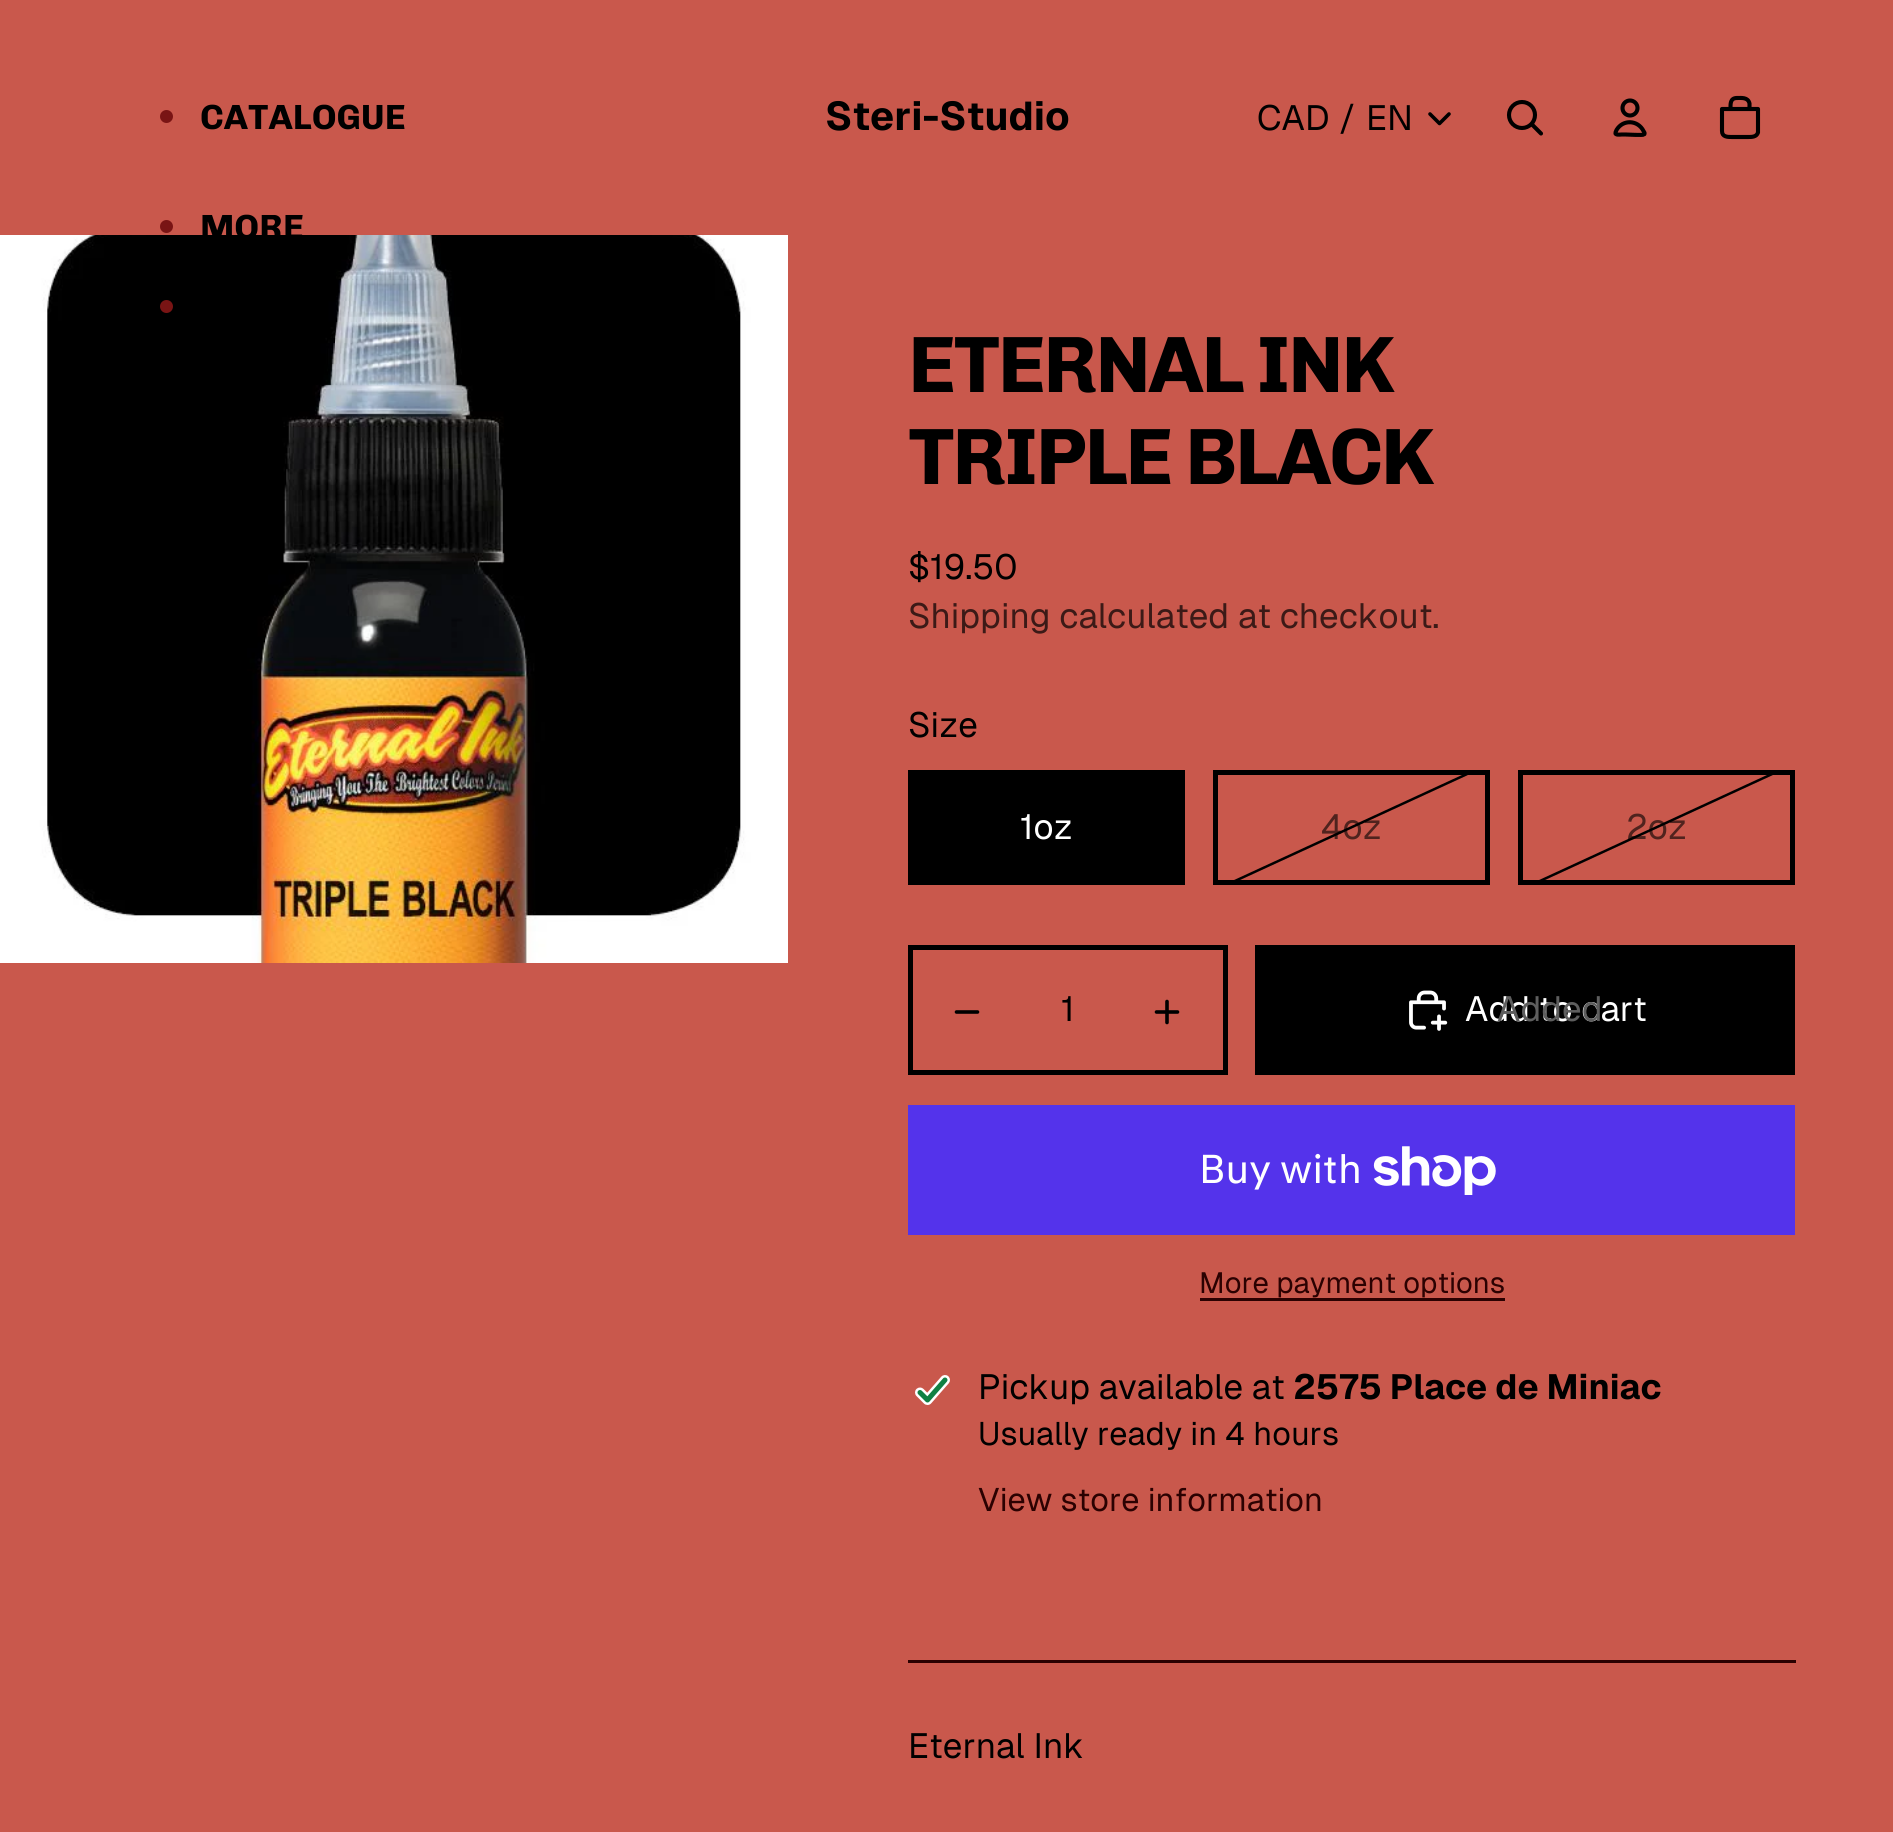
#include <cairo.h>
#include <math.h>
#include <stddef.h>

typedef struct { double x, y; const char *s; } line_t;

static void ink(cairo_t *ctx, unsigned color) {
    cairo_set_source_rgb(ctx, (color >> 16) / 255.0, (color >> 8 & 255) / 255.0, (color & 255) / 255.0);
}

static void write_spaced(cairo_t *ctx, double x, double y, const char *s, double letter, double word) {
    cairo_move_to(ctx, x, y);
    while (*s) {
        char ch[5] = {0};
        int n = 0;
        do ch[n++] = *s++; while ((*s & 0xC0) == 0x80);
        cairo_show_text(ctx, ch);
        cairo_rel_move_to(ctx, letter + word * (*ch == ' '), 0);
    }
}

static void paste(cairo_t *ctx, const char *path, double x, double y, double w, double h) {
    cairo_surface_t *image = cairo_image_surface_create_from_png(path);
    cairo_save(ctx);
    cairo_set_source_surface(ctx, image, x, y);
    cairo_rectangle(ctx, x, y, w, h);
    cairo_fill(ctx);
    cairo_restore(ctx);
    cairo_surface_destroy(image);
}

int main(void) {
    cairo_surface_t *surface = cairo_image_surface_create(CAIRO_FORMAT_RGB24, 1893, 1832);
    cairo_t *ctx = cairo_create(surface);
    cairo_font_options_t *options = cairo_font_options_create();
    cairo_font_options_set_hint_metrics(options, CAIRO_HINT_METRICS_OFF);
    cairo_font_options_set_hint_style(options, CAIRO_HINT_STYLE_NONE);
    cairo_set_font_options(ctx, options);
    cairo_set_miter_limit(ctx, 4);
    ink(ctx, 0xC9584C);
    cairo_paint(ctx);
    ink(ctx, 0x791414);
    cairo_arc(ctx, 166.5, 116.5, 6.5, 0, 2 * M_PI);
    cairo_fill(ctx);
    cairo_select_font_face(ctx, "Chivo", CAIRO_FONT_SLANT_NORMAL, CAIRO_FONT_WEIGHT_BOLD);
    cairo_set_font_size(ctx, 35);
    ink(ctx, 0x000000);
    cairo_move_to(ctx, 200, 129);
    cairo_show_text(ctx, "CATALOGUE");
    ink(ctx, 0x791414);
    cairo_new_path(ctx);
    cairo_arc(ctx, 166.5, 226.5, 6.5, 0, 2 * M_PI);
    cairo_fill(ctx);
    paste(ctx, "media/1.png", 0, 235, 788, 728);
    ink(ctx, 0x000000);
    cairo_move_to(ctx, 200, 239);
    cairo_show_text(ctx, "MORE");
    ink(ctx, 0x791414);
    cairo_new_path(ctx);
    cairo_arc(ctx, 166.5, 306.5, 6.5, 0, 2 * M_PI);
    cairo_fill(ctx);
    cairo_select_font_face(ctx, "Geist", CAIRO_FONT_SLANT_NORMAL, CAIRO_FONT_WEIGHT_BOLD);
    cairo_set_font_size(ctx, 40);
    ink(ctx, 0x000000);
    cairo_move_to(ctx, 825, 130);
    cairo_show_text(ctx, "Steri-Studio");
    cairo_select_font_face(ctx, "Geist", CAIRO_FONT_SLANT_NORMAL, CAIRO_FONT_WEIGHT_NORMAL);
    cairo_set_font_size(ctx, 35);
    {
        static const line_t items[] = {
            {1257, 130, "CAD"},
            {1339, 130, "/"},
            {1366, 130, "EN"},
        };
        for (size_t i = 0; i < sizeof items / sizeof *items; i++) {
            cairo_move_to(ctx, items[i].x, items[i].y);
            cairo_show_text(ctx, items[i].s);
        }
    }
    cairo_new_path(ctx);
    cairo_move_to(ctx, 1449, 114);
    cairo_line_to(ctx, 1439.5, 123.5);
    cairo_line_to(ctx, 1430, 114);
    cairo_set_line_width(ctx, 3.6);
    cairo_set_line_cap(ctx, CAIRO_LINE_CAP_ROUND);
    cairo_set_line_join(ctx, CAIRO_LINE_JOIN_ROUND);
    cairo_stroke(ctx);
    cairo_arc(ctx, 1522, 115, 13, 0, 2 * M_PI);
    cairo_set_line_width(ctx, 4.1);
    cairo_set_line_cap(ctx, CAIRO_LINE_CAP_BUTT);
    cairo_set_line_join(ctx, CAIRO_LINE_JOIN_MITER);
    cairo_stroke(ctx);
    cairo_new_path(ctx);
    cairo_move_to(ctx, 1532, 124.5);
    cairo_line_to(ctx, 1541, 133.5);
    cairo_set_line_cap(ctx, CAIRO_LINE_CAP_ROUND);
    cairo_set_line_join(ctx, CAIRO_LINE_JOIN_ROUND);
    cairo_stroke(ctx);
    cairo_arc(ctx, 1630, 108, 7.5, 0, 2 * M_PI);
    cairo_set_line_cap(ctx, CAIRO_LINE_CAP_BUTT);
    cairo_set_line_join(ctx, CAIRO_LINE_JOIN_MITER);
    cairo_stroke(ctx);
    cairo_new_path(ctx);
    cairo_move_to(ctx, 1616.5, 130);
    cairo_line_to(ctx, 1615.5, 132.5);
    cairo_curve_to(ctx, 1614.5, 135.5, 1620.5, 134.5, 1621.5, 134.5);
    cairo_line_to(ctx, 1625.5, 134.5);
    cairo_curve_to(ctx, 1628, 134.5, 1643, 135.5, 1644, 134.5);
    cairo_line_to(ctx, 1644.5, 134);
    cairo_curve_to(ctx, 1645, 133, 1644, 132, 1643.5, 131);
    cairo_curve_to(ctx, 1638, 120, 1623, 119, 1616.5, 130);
    cairo_set_line_cap(ctx, CAIRO_LINE_CAP_ROUND);
    cairo_set_line_join(ctx, CAIRO_LINE_JOIN_ROUND);
    cairo_stroke(ctx);
    cairo_new_path(ctx);
    cairo_move_to(ctx, 1722, 109);
    cairo_line_to(ctx, 1758, 109);
    cairo_line_to(ctx, 1758, 132.5);
    cairo_curve_to(ctx, 1756.5, 137, 1752, 137, 1748, 137);
    cairo_line_to(ctx, 1732, 137);
    cairo_curve_to(ctx, 1727.5, 137, 1722, 137, 1722, 131);
    cairo_close_path(ctx);
    cairo_move_to(ctx, 1736.5, 98);
    cairo_curve_to(ctx, 1741.5, 98, 1748, 97, 1749.5, 103.5);
    cairo_line_to(ctx, 1749.5, 109);
    cairo_line_to(ctx, 1730.5, 109);
    cairo_curve_to(ctx, 1730.5, 104, 1730, 98, 1737, 98);
    cairo_stroke(ctx);
    cairo_select_font_face(ctx, "Chivo", CAIRO_FONT_SLANT_NORMAL, CAIRO_FONT_WEIGHT_BOLD);
    cairo_set_font_size(ctx, 80);
    write_spaced(ctx, 908, 392, "ETERNAL INK", -2.4, 0);
    write_spaced(ctx, 908, 484, "TRIPLE BLACK", -2.4, 0);
    cairo_select_font_face(ctx, "Geist", CAIRO_FONT_SLANT_NORMAL, CAIRO_FONT_WEIGHT_NORMAL);
    cairo_set_font_size(ctx, 35);
    cairo_move_to(ctx, 908, 579);
    cairo_show_text(ctx, "$19.50");
    ink(ctx, 0x3C1A17);
    cairo_move_to(ctx, 908, 628);
    cairo_show_text(ctx, "Shipping calculated at checkout.");
    ink(ctx, 0x000000);
    cairo_move_to(ctx, 908, 737);
    cairo_show_text(ctx, "Size");
    cairo_rectangle(ctx, 908, 770, 277, 115);
    cairo_fill(ctx);
    ink(ctx, 0xFFFFFF);
    cairo_move_to(ctx, 1020, 839);
    cairo_show_text(ctx, "1oz");
    cairo_rectangle(ctx, 1215.5, 772.5, 272, 110);
    ink(ctx, 0x000000);
    cairo_set_line_width(ctx, 5);
    cairo_set_line_cap(ctx, CAIRO_LINE_CAP_BUTT);
    cairo_set_line_join(ctx, CAIRO_LINE_JOIN_MITER);
    cairo_stroke(ctx);
    ink(ctx, 0x50231E);
    cairo_move_to(ctx, 1321, 839);
    cairo_show_text(ctx, "4oz");
    cairo_save(ctx);
    cairo_rectangle(ctx, 1218, 775, 267, 105);
    cairo_clip(ctx);
    cairo_new_path(ctx);
    cairo_move_to(ctx, 1484.5, 766);
    cairo_line_to(ctx, 1217.5, 889);
    ink(ctx, 0x000000);
    cairo_set_line_width(ctx, 2.5);
    cairo_stroke(ctx);
    cairo_restore(ctx);
    cairo_rectangle(ctx, 1520.5, 772.5, 272, 110);
    ink(ctx, 0x000000);
    cairo_stroke(ctx);
    ink(ctx, 0x50231E);
    cairo_move_to(ctx, 1626, 839);
    cairo_show_text(ctx, "2oz");
    cairo_save(ctx);
    cairo_rectangle(ctx, 1523, 775, 267, 105);
    cairo_clip(ctx);
    cairo_new_path(ctx);
    cairo_move_to(ctx, 1789.5, 766);
    cairo_line_to(ctx, 1522.5, 889);
    ink(ctx, 0x000000);
    cairo_set_line_width(ctx, 2.5);
    cairo_stroke(ctx);
    cairo_restore(ctx);
    cairo_rectangle(ctx, 910.5, 947.5, 315, 125);
    ink(ctx, 0x000000);
    cairo_stroke(ctx);
    cairo_new_path(ctx);
    cairo_move_to(ctx, 956.5, 1012);
    cairo_line_to(ctx, 977.5, 1012);
    cairo_set_line_width(ctx, 3.6);
    cairo_set_line_cap(ctx, CAIRO_LINE_CAP_ROUND);
    cairo_stroke(ctx);
    cairo_move_to(ctx, 1061, 1021);
    cairo_show_text(ctx, "1");
    cairo_new_path(ctx);
    cairo_move_to(ctx, 1156.5, 1012);
    cairo_line_to(ctx, 1177.5, 1012);
    cairo_move_to(ctx, 1167, 1001.5);
    cairo_line_to(ctx, 1167, 1022.5);
    cairo_stroke(ctx);
    cairo_rectangle(ctx, 1255, 945, 540, 130);
    cairo_fill(ctx);
    paste(ctx, "media/2.png", 1409, 990, 39, 41);
    ink(ctx, 0xFFFFFF);
    cairo_move_to(ctx, 1465, 1021);
    cairo_show_text(ctx, "Add to cart");
    ink(ctx, 0x5E5E5E);
    cairo_move_to(ctx, 1497, 1021);
    cairo_show_text(ctx, "Added");
    ink(ctx, 0x5433EB);
    cairo_rectangle(ctx, 908, 1105, 887, 130);
    cairo_fill(ctx);
    cairo_select_font_face(ctx, "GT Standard", CAIRO_FONT_SLANT_NORMAL, CAIRO_FONT_WEIGHT_NORMAL);
    cairo_set_font_size(ctx, 40);
    ink(ctx, 0xFFFFFF);
    cairo_move_to(ctx, 1199, 1183);
    cairo_show_text(ctx, "Buy with");
    paste(ctx, "media/3.png", 1373, 1146, 123, 49);
    cairo_select_font_face(ctx, "Geist", CAIRO_FONT_SLANT_NORMAL, CAIRO_FONT_WEIGHT_NORMAL);
    cairo_set_font_size(ctx, 29.25);
    ink(ctx, 0x2B0101);
    cairo_move_to(ctx, 1199, 1293);
    cairo_show_text(ctx, "More payment options");
    cairo_rectangle(ctx, 1200, 1298, 305, 3);
    cairo_fill(ctx);
    paste(ctx, "media/4.png", 915, 1375, 35, 30);
    cairo_set_font_size(ctx, 35);
    ink(ctx, 0x000000);
    cairo_move_to(ctx, 978, 1399);
    cairo_show_text(ctx, "Pickup available at");
    cairo_select_font_face(ctx, "Geist", CAIRO_FONT_SLANT_NORMAL, CAIRO_FONT_WEIGHT_BOLD);
    cairo_move_to(ctx, 1293, 1399);
    cairo_show_text(ctx, "2575 Place de Miniac");
    cairo_select_font_face(ctx, "Geist", CAIRO_FONT_SLANT_NORMAL, CAIRO_FONT_WEIGHT_NORMAL);
    cairo_set_font_size(ctx, 32.5);
    cairo_move_to(ctx, 978, 1445);
    cairo_show_text(ctx, "Usually ready in 4 hours");
    ink(ctx, 0x2B0101);
    cairo_move_to(ctx, 978, 1511);
    cairo_show_text(ctx, "View store information");
    cairo_rectangle(ctx, 908, 1660, 888, 3);
    cairo_fill(ctx);
    cairo_set_font_size(ctx, 35);
    ink(ctx, 0x000000);
    cairo_move_to(ctx, 908, 1758);
    cairo_show_text(ctx, "Eternal Ink");
    cairo_surface_write_to_png(surface, "image.png");
    cairo_font_options_destroy(options);
    cairo_destroy(ctx);
    cairo_surface_destroy(surface);
    return 0;
}
